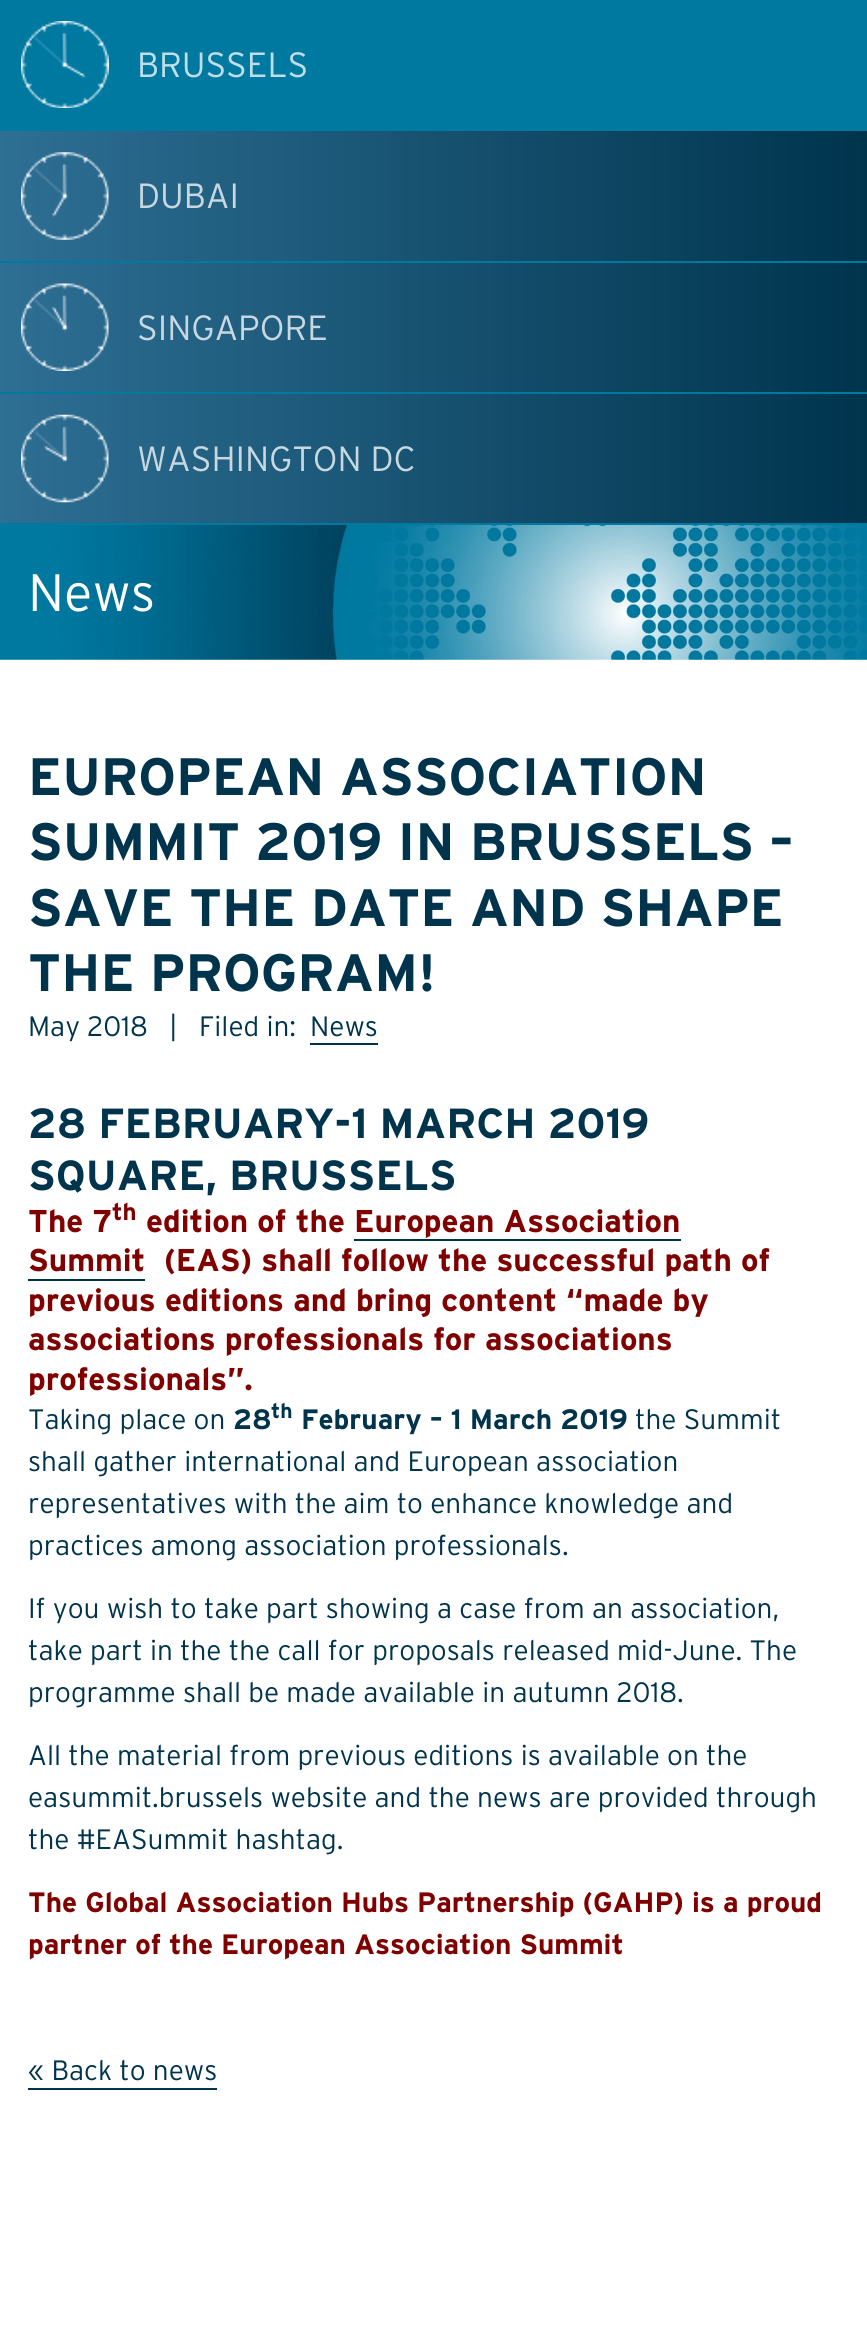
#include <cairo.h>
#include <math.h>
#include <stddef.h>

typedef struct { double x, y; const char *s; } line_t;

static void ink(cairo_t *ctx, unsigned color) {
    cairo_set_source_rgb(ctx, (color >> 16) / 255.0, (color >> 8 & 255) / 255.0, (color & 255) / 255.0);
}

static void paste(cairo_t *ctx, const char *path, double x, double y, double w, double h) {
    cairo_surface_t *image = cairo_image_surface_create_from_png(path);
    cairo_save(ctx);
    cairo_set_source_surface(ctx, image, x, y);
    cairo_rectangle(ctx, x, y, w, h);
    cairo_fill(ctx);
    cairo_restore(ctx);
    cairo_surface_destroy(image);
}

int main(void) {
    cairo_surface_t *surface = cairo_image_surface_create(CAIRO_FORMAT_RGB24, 867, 2345);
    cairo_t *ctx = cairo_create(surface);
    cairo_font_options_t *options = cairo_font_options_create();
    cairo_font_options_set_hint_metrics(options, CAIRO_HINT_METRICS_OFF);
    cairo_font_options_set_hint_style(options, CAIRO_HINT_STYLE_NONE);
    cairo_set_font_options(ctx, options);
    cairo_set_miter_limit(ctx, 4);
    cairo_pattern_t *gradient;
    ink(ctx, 0xFFFFFF);
    cairo_paint(ctx);
    ink(ctx, 0x0079A1);
    cairo_rectangle(ctx, 0, 0, 867, 131);
    cairo_fill(ctx);
    paste(ctx, "media/1.png", 21, 21, 88, 87);
    cairo_select_font_face(ctx, "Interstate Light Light", CAIRO_FONT_SLANT_NORMAL, CAIRO_FONT_WEIGHT_NORMAL);
    cairo_set_font_size(ctx, 35);
    ink(ctx, 0xBFDEE8);
    cairo_move_to(ctx, 137, 77);
    cairo_show_text(ctx, "BRUSSELS");
    gradient = cairo_pattern_create_linear(0, 196, 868, 196);
    cairo_pattern_add_color_stop_rgba(gradient, 0, 0.18, 0.435, 0.58, 1);
    cairo_pattern_add_color_stop_rgba(gradient, 1, 0, 0.204, 0.302, 1);
    cairo_set_source(ctx, gradient);
    cairo_pattern_destroy(gradient);
    cairo_rectangle(ctx, 0, 131, 867, 130);
    cairo_fill(ctx);
    ink(ctx, 0x0079A1);
    cairo_rectangle(ctx, 0, 261, 867, 2);
    cairo_fill(ctx);
    paste(ctx, "media/2.png", 21, 152, 88, 88);
    ink(ctx, 0xC8D8E0);
    cairo_move_to(ctx, 137, 208);
    cairo_show_text(ctx, "DUBAI");
    gradient = cairo_pattern_create_linear(0, 327, 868, 327);
    cairo_pattern_add_color_stop_rgba(gradient, 0, 0.18, 0.435, 0.58, 1);
    cairo_pattern_add_color_stop_rgba(gradient, 1, 0, 0.204, 0.302, 1);
    cairo_set_source(ctx, gradient);
    cairo_pattern_destroy(gradient);
    cairo_rectangle(ctx, 0, 263, 867, 129);
    cairo_fill(ctx);
    ink(ctx, 0x0079A1);
    cairo_rectangle(ctx, 0, 392, 867, 2);
    cairo_fill(ctx);
    paste(ctx, "media/3.png", 21, 283, 88, 88);
    ink(ctx, 0xC8D8E0);
    cairo_move_to(ctx, 137, 340);
    cairo_show_text(ctx, "SINGAPORE");
    gradient = cairo_pattern_create_linear(0, 459, 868, 459);
    cairo_pattern_add_color_stop_rgba(gradient, 0, 0.18, 0.435, 0.58, 1);
    cairo_pattern_add_color_stop_rgba(gradient, 1, 0, 0.204, 0.302, 1);
    cairo_set_source(ctx, gradient);
    cairo_pattern_destroy(gradient);
    cairo_rectangle(ctx, 0, 394, 867, 129);
    cairo_fill(ctx);
    ink(ctx, 0x0079A1);
    cairo_rectangle(ctx, 0, 523, 867, 2);
    cairo_fill(ctx);
    paste(ctx, "media/4.png", 21, 414, 88, 89);
    ink(ctx, 0xC8D8E0);
    cairo_move_to(ctx, 137, 471);
    cairo_show_text(ctx, "WASHINGTON DC");
    paste(ctx, "media/5.png", 0, 525, 867, 135);
    cairo_set_font_size(ctx, 52.5);
    ink(ctx, 0xFFFFFF);
    cairo_move_to(ctx, 28, 611);
    cairo_show_text(ctx, "News");
    cairo_select_font_face(ctx, "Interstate", CAIRO_FONT_SLANT_NORMAL, CAIRO_FONT_WEIGHT_BOLD);
    ink(ctx, 0x00344D);
    {
        static const line_t items[] = {
            {28, 795, "EUROPEAN ASSOCIATION"},
            {28, 860, "SUMMIT 2019 IN BRUSSELS –"},
            {28, 926, "SAVE THE DATE AND SHAPE"},
            {28, 991, "THE PROGRAM!"},
        };
        for (size_t i = 0; i < sizeof items / sizeof *items; i++) {
            cairo_move_to(ctx, items[i].x, items[i].y);
            cairo_show_text(ctx, items[i].s);
        }
    }
    cairo_select_font_face(ctx, "Interstate Light Light", CAIRO_FONT_SLANT_NORMAL, CAIRO_FONT_WEIGHT_NORMAL);
    cairo_set_font_size(ctx, 28);
    {
        static const line_t items[] = {
            {28, 1036, "May 2018"},
            {169, 1036, "|"},
            {199, 1036, "Filed in:"},
            {310, 1036, "News"},
        };
        for (size_t i = 0; i < sizeof items / sizeof *items; i++) {
            cairo_move_to(ctx, items[i].x, items[i].y);
            cairo_show_text(ctx, items[i].s);
        }
    }
    cairo_rectangle(ctx, 310, 1043, 68, 2);
    cairo_fill(ctx);
    cairo_select_font_face(ctx, "Interstate", CAIRO_FONT_SLANT_NORMAL, CAIRO_FONT_WEIGHT_BOLD);
    cairo_set_font_size(ctx, 42);
    cairo_move_to(ctx, 28, 1138);
    cairo_show_text(ctx, "28 FEBRUARY-1 MARCH 2019");
    cairo_move_to(ctx, 28, 1190);
    cairo_show_text(ctx, "SQUARE, BRUSSELS");
    cairo_set_font_size(ctx, 31.5);
    ink(ctx, 0x800000);
    cairo_move_to(ctx, 28, 1232);
    cairo_show_text(ctx, "The 7");
    cairo_set_font_size(ctx, 24);
    cairo_move_to(ctx, 112, 1220);
    cairo_show_text(ctx, "th");
    cairo_set_font_size(ctx, 31.5);
    cairo_move_to(ctx, 146, 1232);
    cairo_show_text(ctx, "edition of the European Association");
    ink(ctx, 0x00344D);
    cairo_rectangle(ctx, 354, 1239, 327, 2);
    cairo_fill(ctx);
    ink(ctx, 0x800000);
    cairo_move_to(ctx, 28, 1271);
    cairo_show_text(ctx, "Summit");
    ink(ctx, 0x00344D);
    cairo_rectangle(ctx, 28, 1279, 117, 2);
    cairo_fill(ctx);
    ink(ctx, 0x800000);
    {
        static const line_t items[] = {
            {164, 1271, "(EAS) shall follow the successful path of"},
            {28, 1311, "previous editions and bring content “made by"},
            {28, 1350, "associations professionals for associations"},
            {28, 1390, "professionals”."},
        };
        for (size_t i = 0; i < sizeof items / sizeof *items; i++) {
            cairo_move_to(ctx, items[i].x, items[i].y);
            cairo_show_text(ctx, items[i].s);
        }
    }
    cairo_select_font_face(ctx, "Interstate Light Light", CAIRO_FONT_SLANT_NORMAL, CAIRO_FONT_WEIGHT_NORMAL);
    cairo_set_font_size(ctx, 28);
    ink(ctx, 0x00344D);
    cairo_move_to(ctx, 28, 1429);
    cairo_show_text(ctx, "Taking place on");
    cairo_select_font_face(ctx, "Interstate", CAIRO_FONT_SLANT_NORMAL, CAIRO_FONT_WEIGHT_BOLD);
    cairo_move_to(ctx, 233, 1429);
    cairo_show_text(ctx, "28");
    cairo_set_font_size(ctx, 21);
    cairo_move_to(ctx, 271, 1418);
    cairo_show_text(ctx, "th");
    cairo_set_font_size(ctx, 28);
    cairo_move_to(ctx, 301, 1429);
    cairo_show_text(ctx, "February – 1 March 2019");
    cairo_select_font_face(ctx, "Interstate Light Light", CAIRO_FONT_SLANT_NORMAL, CAIRO_FONT_WEIGHT_NORMAL);
    {
        static const line_t items[] = {
            {635, 1429, "the Summit"},
            {28, 1471, "shall gather international and European association"},
            {28, 1513, "representatives with the aim to enhance knowledge and"},
            {28, 1555, "practices among association professionals."},
            {28, 1618, "If you wish to take part showing a case from an association,"},
            {28, 1660, "take part in the the call for proposals released mid-June. The"},
            {28, 1702, "programme shall be made available in autumn 2018."},
            {28, 1765, "All the material from previous editions is available on the"},
            {28, 1807, "easummit.brussels website and the news are provided through"},
            {28, 1849, "the #EASummit hashtag."},
        };
        for (size_t i = 0; i < sizeof items / sizeof *items; i++) {
            cairo_move_to(ctx, items[i].x, items[i].y);
            cairo_show_text(ctx, items[i].s);
        }
    }
    cairo_select_font_face(ctx, "Interstate", CAIRO_FONT_SLANT_NORMAL, CAIRO_FONT_WEIGHT_BOLD);
    ink(ctx, 0x800000);
    cairo_move_to(ctx, 28, 1912);
    cairo_show_text(ctx, "The Global Association Hubs Partnership (GAHP) is a proud");
    cairo_move_to(ctx, 28, 1954);
    cairo_show_text(ctx, "partner of the European Association Summit");
    cairo_select_font_face(ctx, "Interstate Light Light", CAIRO_FONT_SLANT_NORMAL, CAIRO_FONT_WEIGHT_NORMAL);
    ink(ctx, 0x00344D);
    cairo_move_to(ctx, 28, 2080);
    cairo_show_text(ctx, "« Back to news");
    cairo_rectangle(ctx, 28, 2088, 189, 2);
    cairo_fill(ctx);
    cairo_surface_write_to_png(surface, "image.png");
    cairo_font_options_destroy(options);
    cairo_destroy(ctx);
    cairo_surface_destroy(surface);
    return 0;
}
